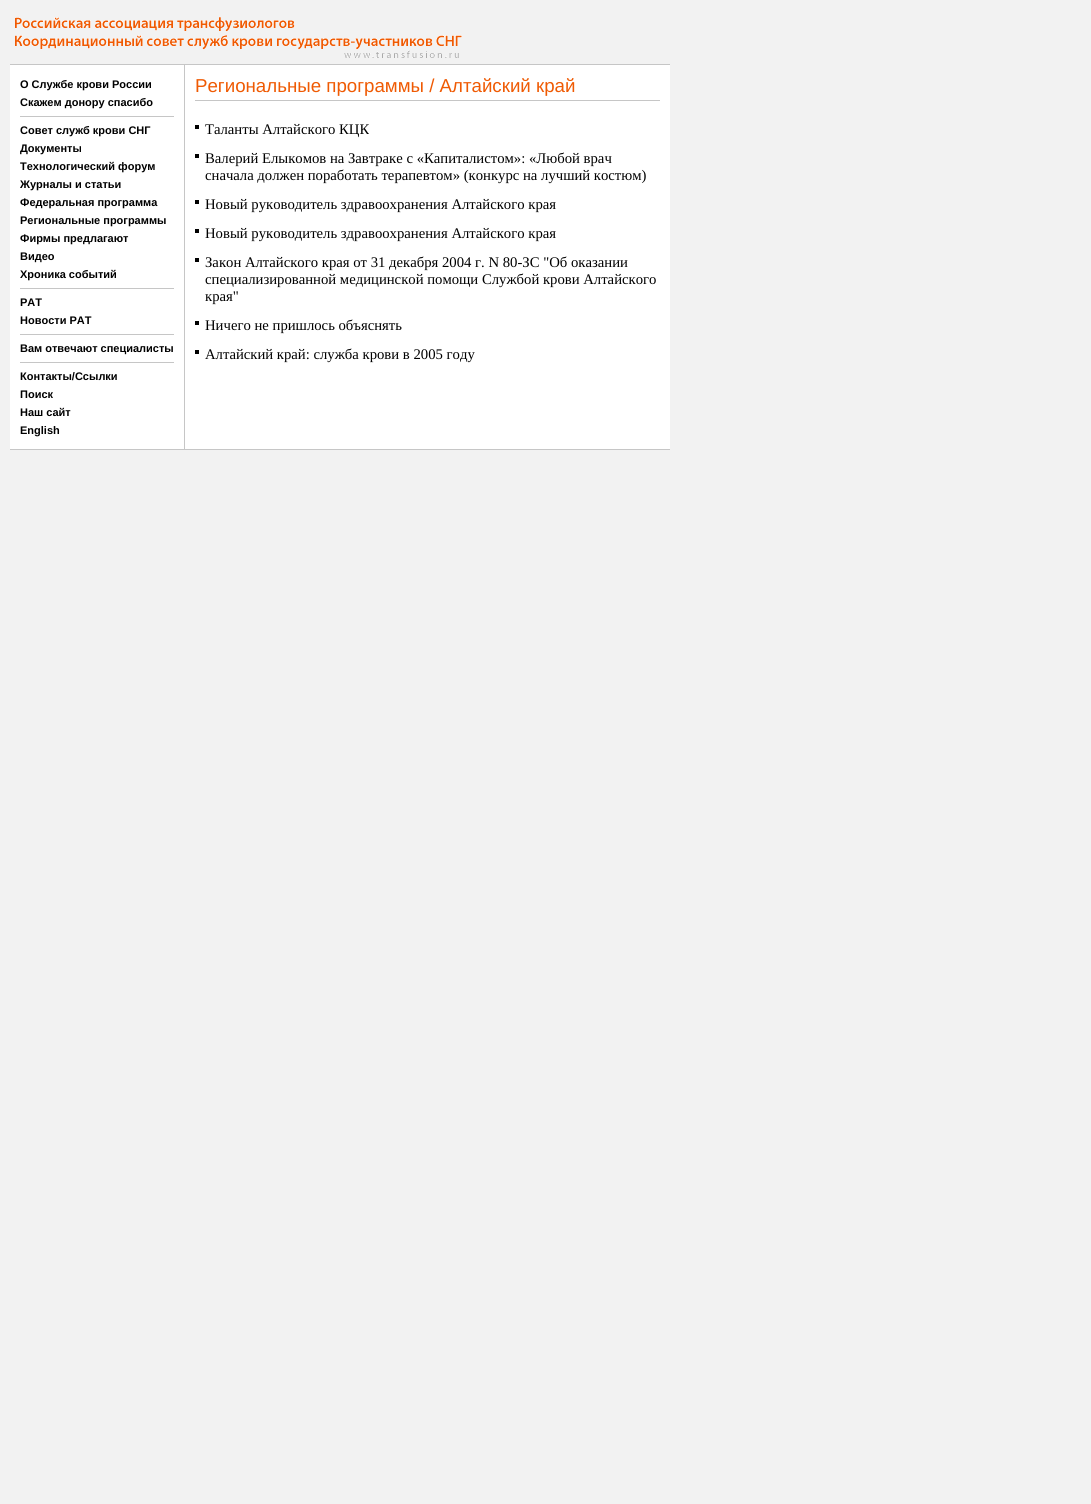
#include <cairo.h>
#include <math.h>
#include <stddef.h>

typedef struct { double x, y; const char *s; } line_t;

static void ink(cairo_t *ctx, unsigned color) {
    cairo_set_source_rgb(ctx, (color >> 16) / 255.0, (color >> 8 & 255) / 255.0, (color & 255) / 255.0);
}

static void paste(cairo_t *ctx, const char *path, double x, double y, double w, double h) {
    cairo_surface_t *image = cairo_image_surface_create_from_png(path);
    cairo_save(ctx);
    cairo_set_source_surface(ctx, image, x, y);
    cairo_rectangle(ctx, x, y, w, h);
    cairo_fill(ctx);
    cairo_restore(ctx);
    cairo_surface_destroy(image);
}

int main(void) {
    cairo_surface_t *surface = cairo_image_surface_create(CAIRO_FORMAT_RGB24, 1091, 1504);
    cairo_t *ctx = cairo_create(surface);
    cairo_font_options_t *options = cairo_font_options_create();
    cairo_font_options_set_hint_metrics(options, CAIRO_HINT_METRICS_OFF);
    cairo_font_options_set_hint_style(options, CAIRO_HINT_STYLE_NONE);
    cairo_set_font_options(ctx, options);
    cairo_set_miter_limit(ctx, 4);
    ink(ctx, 0xF2F2F2);
    cairo_paint(ctx);
    ink(ctx, 0xFFFFFF);
    cairo_rectangle(ctx, 10, 65, 660, 384);
    cairo_fill(ctx);
    paste(ctx, "media/1.png", 15, 17, 447, 41);
    ink(ctx, 0xC6C6C6);
    cairo_rectangle(ctx, 10, 64, 660, 1);
    cairo_fill(ctx);
    cairo_rectangle(ctx, 184, 65, 1, 384);
    cairo_fill(ctx);
    cairo_select_font_face(ctx, "Liberation Sans", CAIRO_FONT_SLANT_NORMAL, CAIRO_FONT_WEIGHT_BOLD);
    cairo_set_font_size(ctx, 11);
    ink(ctx, 0x000000);
    cairo_move_to(ctx, 20, 88);
    cairo_show_text(ctx, "О Службе крови России");
    cairo_move_to(ctx, 20, 106);
    cairo_show_text(ctx, "Скажем донору спасибо");
    ink(ctx, 0xC6C6C6);
    cairo_rectangle(ctx, 20, 116, 154, 1);
    cairo_fill(ctx);
    ink(ctx, 0x000000);
    {
        static const line_t items[] = {
            {20, 134, "Совет служб крови СНГ"},
            {20, 152, "Документы"},
            {20, 170, "Технологический форум"},
            {20, 188, "Журналы и статьи"},
            {20, 206, "Федеральная программа"},
            {20, 224, "Региональные программы"},
            {20, 242, "Фирмы предлагают"},
            {20, 260, "Видео"},
            {20, 278, "Хроника событий"},
        };
        for (size_t i = 0; i < sizeof items / sizeof *items; i++) {
            cairo_move_to(ctx, items[i].x, items[i].y);
            cairo_show_text(ctx, items[i].s);
        }
    }
    ink(ctx, 0xC6C6C6);
    cairo_rectangle(ctx, 20, 288, 154, 1);
    cairo_fill(ctx);
    ink(ctx, 0x000000);
    cairo_move_to(ctx, 20, 306);
    cairo_show_text(ctx, "РАТ");
    cairo_move_to(ctx, 20, 324);
    cairo_show_text(ctx, "Новости РАТ");
    ink(ctx, 0xC6C6C6);
    cairo_rectangle(ctx, 20, 334, 154, 1);
    cairo_fill(ctx);
    ink(ctx, 0x000000);
    cairo_move_to(ctx, 20, 352);
    cairo_show_text(ctx, "Вам отвечают специалисты");
    ink(ctx, 0xC6C6C6);
    cairo_rectangle(ctx, 20, 362, 154, 1);
    cairo_fill(ctx);
    ink(ctx, 0x000000);
    {
        static const line_t items[] = {
            {20, 380, "Контакты/Ссылки"},
            {20, 398, "Поиск"},
            {20, 416, "Наш сайт"},
            {20, 434, "English"},
        };
        for (size_t i = 0; i < sizeof items / sizeof *items; i++) {
            cairo_move_to(ctx, items[i].x, items[i].y);
            cairo_show_text(ctx, items[i].s);
        }
    }
    cairo_select_font_face(ctx, "Liberation Sans", CAIRO_FONT_SLANT_NORMAL, CAIRO_FONT_WEIGHT_NORMAL);
    cairo_set_font_size(ctx, 18.7);
    ink(ctx, 0xEF5A03);
    cairo_move_to(ctx, 195, 92);
    cairo_show_text(ctx, "Региональные программы / Алтайский край");
    ink(ctx, 0xC6C6C6);
    cairo_rectangle(ctx, 195, 100, 465, 1);
    cairo_fill(ctx);
    ink(ctx, 0x000000);
    cairo_rectangle(ctx, 195, 125, 4, 4);
    cairo_fill(ctx);
    cairo_select_font_face(ctx, "Liberation Serif", CAIRO_FONT_SLANT_NORMAL, CAIRO_FONT_WEIGHT_NORMAL);
    cairo_set_font_size(ctx, 14.7);
    cairo_move_to(ctx, 205, 134);
    cairo_show_text(ctx, "Таланты Алтайского КЦК");
    cairo_rectangle(ctx, 195, 154, 4, 4);
    cairo_fill(ctx);
    cairo_move_to(ctx, 205, 163);
    cairo_show_text(ctx, "Валерий Елыкомов на Завтраке с «Капиталистом»: «Любой врач");
    cairo_move_to(ctx, 205, 180);
    cairo_show_text(ctx, "сначала должен поработать терапевтом» (конкурс на лучший костюм)");
    cairo_rectangle(ctx, 195, 200, 4, 4);
    cairo_fill(ctx);
    cairo_move_to(ctx, 205, 209);
    cairo_show_text(ctx, "Новый руководитель здравоохранения Алтайского края");
    cairo_rectangle(ctx, 195, 229, 4, 4);
    cairo_fill(ctx);
    cairo_move_to(ctx, 205, 238);
    cairo_show_text(ctx, "Новый руководитель здравоохранения Алтайского края");
    cairo_rectangle(ctx, 195, 258, 4, 4);
    cairo_fill(ctx);
    {
        static const line_t items[] = {
            {205, 267, "Закон Алтайского края от 31 декабря 2004 г. N 80-ЗС \"Об оказании"},
            {205, 284, "специализированной медицинской помощи Службой крови Алтайского"},
            {205, 301, "края\""},
        };
        for (size_t i = 0; i < sizeof items / sizeof *items; i++) {
            cairo_move_to(ctx, items[i].x, items[i].y);
            cairo_show_text(ctx, items[i].s);
        }
    }
    cairo_rectangle(ctx, 195, 321, 4, 4);
    cairo_fill(ctx);
    cairo_move_to(ctx, 205, 330);
    cairo_show_text(ctx, "Ничего не пришлось объяснять");
    cairo_rectangle(ctx, 195, 350, 4, 4);
    cairo_fill(ctx);
    cairo_move_to(ctx, 205, 359);
    cairo_show_text(ctx, "Алтайский край: служба крови в 2005 году");
    ink(ctx, 0xC6C6C6);
    cairo_rectangle(ctx, 10, 449, 660, 1);
    cairo_fill(ctx);
    cairo_surface_write_to_png(surface, "image.png");
    cairo_font_options_destroy(options);
    cairo_destroy(ctx);
    cairo_surface_destroy(surface);
    return 0;
}
